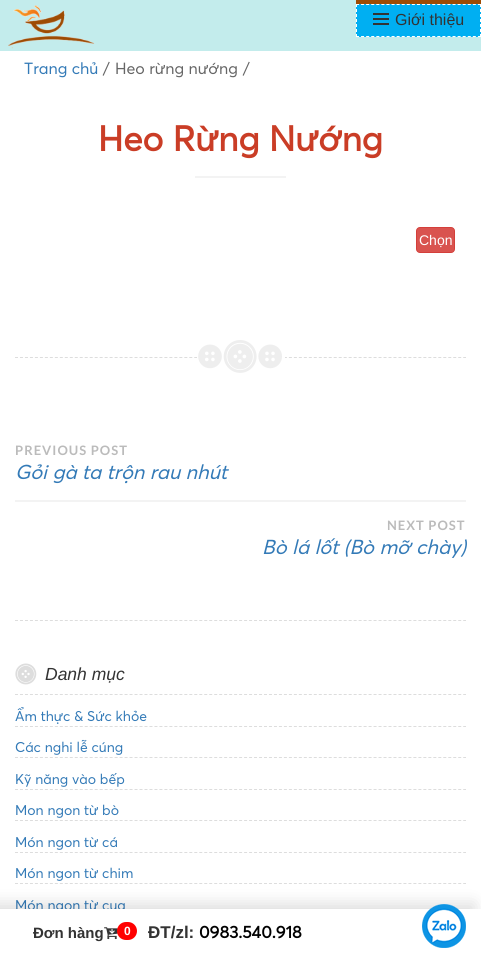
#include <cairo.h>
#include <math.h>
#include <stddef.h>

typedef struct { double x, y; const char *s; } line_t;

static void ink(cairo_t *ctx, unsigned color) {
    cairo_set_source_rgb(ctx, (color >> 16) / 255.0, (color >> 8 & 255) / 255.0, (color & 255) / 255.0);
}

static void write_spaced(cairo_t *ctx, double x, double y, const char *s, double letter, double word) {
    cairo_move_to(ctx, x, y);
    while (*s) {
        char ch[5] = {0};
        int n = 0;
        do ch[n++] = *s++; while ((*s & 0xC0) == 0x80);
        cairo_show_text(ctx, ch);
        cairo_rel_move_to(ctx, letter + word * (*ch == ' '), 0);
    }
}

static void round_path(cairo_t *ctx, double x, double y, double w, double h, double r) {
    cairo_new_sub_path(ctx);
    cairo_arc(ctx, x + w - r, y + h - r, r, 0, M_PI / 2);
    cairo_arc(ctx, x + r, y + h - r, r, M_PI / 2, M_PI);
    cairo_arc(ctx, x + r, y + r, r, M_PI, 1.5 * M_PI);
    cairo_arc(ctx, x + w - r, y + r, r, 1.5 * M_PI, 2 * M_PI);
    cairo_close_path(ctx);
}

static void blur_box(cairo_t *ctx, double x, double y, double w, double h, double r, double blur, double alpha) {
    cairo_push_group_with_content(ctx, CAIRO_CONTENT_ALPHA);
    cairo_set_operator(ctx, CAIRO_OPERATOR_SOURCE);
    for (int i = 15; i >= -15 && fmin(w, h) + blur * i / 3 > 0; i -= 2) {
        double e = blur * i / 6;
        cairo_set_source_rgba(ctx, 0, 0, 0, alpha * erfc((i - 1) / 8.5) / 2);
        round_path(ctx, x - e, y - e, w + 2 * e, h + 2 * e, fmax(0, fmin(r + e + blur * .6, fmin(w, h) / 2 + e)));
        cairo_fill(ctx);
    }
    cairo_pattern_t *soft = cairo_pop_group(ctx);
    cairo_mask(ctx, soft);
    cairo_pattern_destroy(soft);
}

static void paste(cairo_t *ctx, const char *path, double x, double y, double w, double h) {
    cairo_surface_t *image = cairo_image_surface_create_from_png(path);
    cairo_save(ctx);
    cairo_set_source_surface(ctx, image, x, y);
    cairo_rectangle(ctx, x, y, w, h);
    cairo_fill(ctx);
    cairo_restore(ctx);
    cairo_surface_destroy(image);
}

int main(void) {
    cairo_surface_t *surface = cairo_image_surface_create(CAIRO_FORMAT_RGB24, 481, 958);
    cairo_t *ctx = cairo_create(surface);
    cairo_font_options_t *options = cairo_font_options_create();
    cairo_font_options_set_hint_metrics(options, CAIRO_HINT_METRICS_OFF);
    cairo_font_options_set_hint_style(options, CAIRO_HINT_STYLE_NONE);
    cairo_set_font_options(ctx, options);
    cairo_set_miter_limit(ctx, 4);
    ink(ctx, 0xFFFFFF);
    cairo_paint(ctx);
    ink(ctx, 0xC3ECEC);
    cairo_rectangle(ctx, 0, 0, 481, 51);
    cairo_fill(ctx);
    paste(ctx, "media/1.png", 8, 5, 87, 44);
    ink(ctx, 0x9E4B03);
    cairo_rectangle(ctx, 356, 0, 125, 4);
    cairo_fill(ctx);
    ink(ctx, 0x00AFF2);
    cairo_rectangle(ctx, 356, 4, 125, 33);
    cairo_fill(ctx);
    cairo_new_path(ctx);
    cairo_move_to(ctx, 356, 4.5);
    cairo_line_to(ctx, 481, 4.5);
    ink(ctx, 0xFFFFFF);
    cairo_set_line_width(ctx, 1);
    cairo_set_dash(ctx, (double[]){3, 2.08}, 2, 0);
    cairo_stroke(ctx);
    cairo_new_path(ctx);
    cairo_move_to(ctx, 480.5, 4);
    cairo_line_to(ctx, 480.5, 37);
    cairo_set_dash(ctx, (double[]){3, 2}, 2, 0);
    cairo_stroke(ctx);
    cairo_new_path(ctx);
    cairo_move_to(ctx, 356, 36.5);
    cairo_line_to(ctx, 481, 36.5);
    cairo_set_dash(ctx, (double[]){3, 2.08}, 2, 0);
    cairo_stroke(ctx);
    cairo_new_path(ctx);
    cairo_move_to(ctx, 356.5, 4);
    cairo_line_to(ctx, 356.5, 37);
    cairo_set_dash(ctx, (double[]){3, 2}, 2, 0);
    cairo_stroke(ctx);
    paste(ctx, "media/2.png", 373, 13, 16, 12);
    cairo_select_font_face(ctx, "Liberation Sans", CAIRO_FONT_SLANT_NORMAL, CAIRO_FONT_WEIGHT_NORMAL);
    cairo_set_font_size(ctx, 16);
    ink(ctx, 0x333333);
    cairo_move_to(ctx, 395, 25);
    cairo_show_text(ctx, "Giới thiệu");
    cairo_select_font_face(ctx, "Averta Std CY", CAIRO_FONT_SLANT_NORMAL, CAIRO_FONT_WEIGHT_NORMAL);
    ink(ctx, 0x337AB7);
    cairo_move_to(ctx, 24, 74);
    cairo_show_text(ctx, "Trang chủ");
    ink(ctx, 0x666666);
    {
        static const line_t items[] = {
            {103, 74, "/"},
            {115, 74, "Heo rừng nướng"},
            {243, 74, "/"},
        };
        for (size_t i = 0; i < sizeof items / sizeof *items; i++) {
            cairo_move_to(ctx, items[i].x, items[i].y);
            cairo_show_text(ctx, items[i].s);
        }
    }
    cairo_new_path(ctx);
    cairo_move_to(ctx, 15, 357.5);
    cairo_line_to(ctx, 466, 357.5);
    ink(ctx, 0xDDDDDD);
    cairo_set_dash(ctx, (double[]){3, 1.98}, 2, 0);
    cairo_stroke(ctx);
    cairo_select_font_face(ctx, "Averta Std CY", CAIRO_FONT_SLANT_NORMAL, CAIRO_FONT_WEIGHT_BOLD);
    cairo_set_font_size(ctx, 35);
    ink(ctx, 0xCA3D26);
    cairo_move_to(ctx, 98, 151);
    cairo_show_text(ctx, "Heo Rừng Nướng");
    ink(ctx, 0xF3F3F3);
    cairo_rectangle(ctx, 195, 176, 91, 2);
    cairo_fill(ctx);
    ink(ctx, 0xD9534F);
    round_path(ctx, 416.5, 227.5, 38, 25, 3.5);
    cairo_fill_preserve(ctx);
    ink(ctx, 0xD43F3A);
    cairo_set_dash(ctx, NULL, 0, 0);
    cairo_stroke(ctx);
    cairo_select_font_face(ctx, "Liberation Sans", CAIRO_FONT_SLANT_NORMAL, CAIRO_FONT_WEIGHT_NORMAL);
    cairo_set_font_size(ctx, 14);
    ink(ctx, 0xFFFFFF);
    cairo_move_to(ctx, 419, 245);
    cairo_show_text(ctx, "Chọn");
    cairo_rectangle(ctx, 197, 357, 88, 1);
    cairo_fill(ctx);
    paste(ctx, "media/3.png", 198, 340, 84, 33);
    ink(ctx, 0xF3F3F3);
    cairo_rectangle(ctx, 15, 500, 451, 2);
    cairo_fill(ctx);
    cairo_select_font_face(ctx, "Lato", CAIRO_FONT_SLANT_NORMAL, CAIRO_FONT_WEIGHT_BOLD);
    cairo_set_font_size(ctx, 13);
    ink(ctx, 0xBBBBBB);
    write_spaced(ctx, 15, 455, "PREVIOUS POST", 1, 0);
    cairo_select_font_face(ctx, "Averta Std CY", CAIRO_FONT_SLANT_ITALIC, CAIRO_FONT_WEIGHT_NORMAL);
    cairo_set_font_size(ctx, 20);
    ink(ctx, 0x337AB7);
    cairo_move_to(ctx, 15, 479);
    cairo_show_text(ctx, "Gỏi gà ta trộn rau nhút");
    cairo_select_font_face(ctx, "Lato", CAIRO_FONT_SLANT_NORMAL, CAIRO_FONT_WEIGHT_BOLD);
    cairo_set_font_size(ctx, 13);
    ink(ctx, 0xBBBBBB);
    write_spaced(ctx, 387, 530, "NEXT POST", 1, 0);
    cairo_select_font_face(ctx, "Averta Std CY", CAIRO_FONT_SLANT_ITALIC, CAIRO_FONT_WEIGHT_NORMAL);
    cairo_set_font_size(ctx, 20);
    ink(ctx, 0x337AB7);
    cairo_move_to(ctx, 262, 554);
    cairo_show_text(ctx, "Bò lá lốt (Bò mỡ chày)");
    cairo_new_path(ctx);
    cairo_move_to(ctx, 15, 620.5);
    cairo_line_to(ctx, 466, 620.5);
    ink(ctx, 0xDDDDDD);
    cairo_set_dash(ctx, (double[]){3, 1.98}, 2, 0);
    cairo_stroke(ctx);
    paste(ctx, "media/4.png", 15, 663, 22, 22);
    cairo_select_font_face(ctx, "Liberation Sans", CAIRO_FONT_SLANT_ITALIC, CAIRO_FONT_WEIGHT_NORMAL);
    cairo_set_font_size(ctx, 17.5);
    ink(ctx, 0x333333);
    cairo_move_to(ctx, 45, 680);
    cairo_show_text(ctx, "Danh mục");
    cairo_new_path(ctx);
    cairo_move_to(ctx, 15, 694.5);
    cairo_line_to(ctx, 466, 694.5);
    ink(ctx, 0xDDDDDD);
    cairo_stroke(ctx);
    cairo_select_font_face(ctx, "Averta Std CY", CAIRO_FONT_SLANT_NORMAL, CAIRO_FONT_WEIGHT_NORMAL);
    cairo_set_font_size(ctx, 14);
    ink(ctx, 0x337AB7);
    cairo_move_to(ctx, 15, 721);
    cairo_show_text(ctx, "Ẩm thực & Sức khỏe");
    cairo_new_path(ctx);
    cairo_move_to(ctx, 15, 726.5);
    cairo_line_to(ctx, 466, 726.5);
    ink(ctx, 0xDDDDDD);
    cairo_stroke(ctx);
    ink(ctx, 0x337AB7);
    cairo_move_to(ctx, 15, 752);
    cairo_show_text(ctx, "Các nghi lễ cúng");
    cairo_new_path(ctx);
    cairo_move_to(ctx, 15, 757.5);
    cairo_line_to(ctx, 466, 757.5);
    ink(ctx, 0xDDDDDD);
    cairo_stroke(ctx);
    ink(ctx, 0x337AB7);
    cairo_move_to(ctx, 15, 784);
    cairo_show_text(ctx, "Kỹ năng vào bếp");
    cairo_new_path(ctx);
    cairo_move_to(ctx, 15, 789.5);
    cairo_line_to(ctx, 466, 789.5);
    ink(ctx, 0xDDDDDD);
    cairo_stroke(ctx);
    ink(ctx, 0x337AB7);
    cairo_move_to(ctx, 15, 815);
    cairo_show_text(ctx, "Mon ngon từ bò");
    cairo_new_path(ctx);
    cairo_move_to(ctx, 15, 820.5);
    cairo_line_to(ctx, 466, 820.5);
    ink(ctx, 0xDDDDDD);
    cairo_stroke(ctx);
    ink(ctx, 0x337AB7);
    cairo_move_to(ctx, 15, 847);
    cairo_show_text(ctx, "Món ngon từ cá");
    cairo_new_path(ctx);
    cairo_move_to(ctx, 15, 852.5);
    cairo_line_to(ctx, 466, 852.5);
    ink(ctx, 0xDDDDDD);
    cairo_stroke(ctx);
    ink(ctx, 0x337AB7);
    cairo_move_to(ctx, 15, 878);
    cairo_show_text(ctx, "Món ngon từ chim");
    cairo_new_path(ctx);
    cairo_move_to(ctx, 15, 883.5);
    cairo_line_to(ctx, 466, 883.5);
    ink(ctx, 0xDDDDDD);
    cairo_stroke(ctx);
    ink(ctx, 0x337AB7);
    cairo_move_to(ctx, 15, 910);
    cairo_show_text(ctx, "Món ngon từ cua");
    ink(ctx, 0x000000);
    blur_box(ctx, -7, 904, 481, 49, 0, 8, 0.14);
    ink(ctx, 0xFFFFFF);
    cairo_rectangle(ctx, 0, 909, 481, 49);
    cairo_fill(ctx);
    cairo_select_font_face(ctx, "Liberation Sans", CAIRO_FONT_SLANT_NORMAL, CAIRO_FONT_WEIGHT_BOLD);
    cairo_set_font_size(ctx, 15);
    ink(ctx, 0x333333);
    cairo_move_to(ctx, 33, 938);
    cairo_show_text(ctx, "Đơn hàng");
    paste(ctx, "media/5.png", 104, 927, 14, 13);
    ink(ctx, 0xFF0000);
    round_path(ctx, 117, 922, 20, 18, 9);
    cairo_fill(ctx);
    cairo_set_font_size(ctx, 12);
    ink(ctx, 0xFFFFFF);
    cairo_move_to(ctx, 124, 935);
    cairo_show_text(ctx, "0");
    cairo_set_font_size(ctx, 17);
    ink(ctx, 0x333333);
    cairo_move_to(ctx, 148, 938);
    cairo_show_text(ctx, "ĐT/zl:");
    cairo_select_font_face(ctx, "Averta Std CY", CAIRO_FONT_SLANT_NORMAL, CAIRO_FONT_WEIGHT_BOLD);
    ink(ctx, 0x000000);
    cairo_move_to(ctx, 199, 938);
    cairo_show_text(ctx, "0983.540.918");
    paste(ctx, "media/6.png", 422, 904, 44, 44);
    cairo_surface_write_to_png(surface, "image.png");
    cairo_font_options_destroy(options);
    cairo_destroy(ctx);
    cairo_surface_destroy(surface);
    return 0;
}
